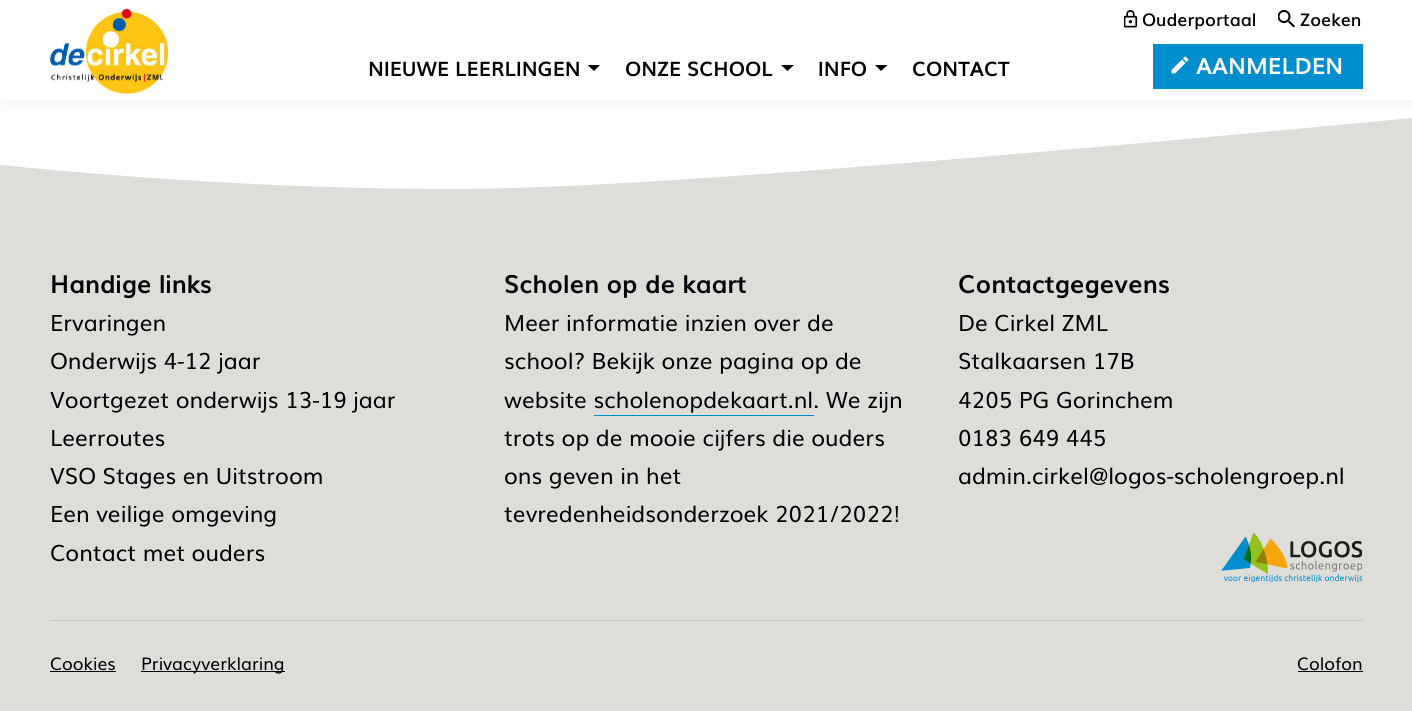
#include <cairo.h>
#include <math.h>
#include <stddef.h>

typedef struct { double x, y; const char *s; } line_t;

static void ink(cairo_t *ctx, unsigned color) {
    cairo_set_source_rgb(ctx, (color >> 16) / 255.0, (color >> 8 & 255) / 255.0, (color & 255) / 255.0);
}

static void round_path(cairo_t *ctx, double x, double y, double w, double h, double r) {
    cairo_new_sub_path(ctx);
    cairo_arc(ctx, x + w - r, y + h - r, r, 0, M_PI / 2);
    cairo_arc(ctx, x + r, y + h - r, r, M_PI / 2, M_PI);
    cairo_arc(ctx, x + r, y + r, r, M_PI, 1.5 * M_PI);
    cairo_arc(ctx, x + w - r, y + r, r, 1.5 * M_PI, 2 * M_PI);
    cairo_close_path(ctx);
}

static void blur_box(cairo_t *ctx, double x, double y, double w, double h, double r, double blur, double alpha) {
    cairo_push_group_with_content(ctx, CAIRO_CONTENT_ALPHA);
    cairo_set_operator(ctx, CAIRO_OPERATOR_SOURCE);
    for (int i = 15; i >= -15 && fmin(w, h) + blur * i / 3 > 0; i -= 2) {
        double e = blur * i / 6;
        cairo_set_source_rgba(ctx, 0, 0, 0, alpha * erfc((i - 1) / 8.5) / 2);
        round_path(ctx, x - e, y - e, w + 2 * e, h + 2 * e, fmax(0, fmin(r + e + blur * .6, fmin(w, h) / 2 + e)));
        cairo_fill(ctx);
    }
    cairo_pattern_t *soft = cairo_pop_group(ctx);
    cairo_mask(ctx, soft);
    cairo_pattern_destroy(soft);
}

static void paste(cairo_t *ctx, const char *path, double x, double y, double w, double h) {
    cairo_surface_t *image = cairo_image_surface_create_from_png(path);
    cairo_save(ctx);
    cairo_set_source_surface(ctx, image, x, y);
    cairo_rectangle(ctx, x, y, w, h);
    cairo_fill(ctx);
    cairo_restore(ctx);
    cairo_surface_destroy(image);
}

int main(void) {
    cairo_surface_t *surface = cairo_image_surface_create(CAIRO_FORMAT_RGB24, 1412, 711);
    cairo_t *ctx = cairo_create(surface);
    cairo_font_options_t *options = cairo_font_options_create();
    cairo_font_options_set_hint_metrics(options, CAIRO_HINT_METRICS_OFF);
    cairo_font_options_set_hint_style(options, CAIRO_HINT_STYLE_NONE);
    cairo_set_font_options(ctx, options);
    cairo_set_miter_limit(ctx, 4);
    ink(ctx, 0xDEDDDA);
    cairo_paint(ctx);
    ink(ctx, 0xFFFFFF);
    cairo_rectangle(ctx, 0, 100, 1412, 89);
    cairo_fill(ctx);
    ink(ctx, 0xDEDDDA);
    cairo_new_path(ctx);
    cairo_move_to(ctx, 0, 165);
    cairo_curve_to(ctx, 160, 181, 312, 189, 456, 189);
    cairo_curve_to(ctx, 599, 189, 918, 165, 1412, 118);
    cairo_line_to(ctx, 1412, 192);
    cairo_line_to(ctx, 0, 192);
    cairo_close_path(ctx);
    cairo_fill(ctx);
    ink(ctx, 0x000000);
    blur_box(ctx, 5, 5, 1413, 100, 0, 6, 0.05);
    ink(ctx, 0xFFFFFF);
    cairo_rectangle(ctx, 0, 0, 1412, 100);
    cairo_fill(ctx);
    paste(ctx, "media/1.png", 50, 8, 119, 86);
    paste(ctx, "media/2.png", 1124, 10, 14, 18);
    cairo_save(ctx);
    cairo_rectangle(ctx, 1143, 8, 113, 22);
    cairo_clip(ctx);
    cairo_select_font_face(ctx, "Muli SemiBold", CAIRO_FONT_SLANT_NORMAL, CAIRO_FONT_WEIGHT_NORMAL);
    cairo_set_font_size(ctx, 17.5);
    ink(ctx, 0x000000);
    cairo_move_to(ctx, 1142, 26);
    cairo_show_text(ctx, "Ouderportaal");
    cairo_restore(ctx);
    paste(ctx, "media/3.png", 1278, 10, 17, 18);
    cairo_select_font_face(ctx, "Muli SemiBold", CAIRO_FONT_SLANT_NORMAL, CAIRO_FONT_WEIGHT_NORMAL);
    cairo_set_font_size(ctx, 17.5);
    ink(ctx, 0x000000);
    cairo_move_to(ctx, 1300, 26);
    cairo_show_text(ctx, "Zoeken");
    cairo_select_font_face(ctx, "Muli", CAIRO_FONT_SLANT_NORMAL, CAIRO_FONT_WEIGHT_BOLD);
    cairo_set_font_size(ctx, 20);
    cairo_move_to(ctx, 368, 76);
    cairo_show_text(ctx, "NIEUWE LEERLINGEN");
    cairo_new_path(ctx);
    cairo_move_to(ctx, 587.5, 65);
    cairo_line_to(ctx, 594, 71);
    cairo_line_to(ctx, 600, 65);
    cairo_close_path(ctx);
    cairo_fill(ctx);
    cairo_move_to(ctx, 625, 76);
    cairo_show_text(ctx, "ONZE SCHOOL");
    cairo_new_path(ctx);
    cairo_move_to(ctx, 781, 65);
    cairo_line_to(ctx, 787.5, 71);
    cairo_line_to(ctx, 794, 65);
    cairo_close_path(ctx);
    cairo_fill(ctx);
    cairo_move_to(ctx, 818, 76);
    cairo_show_text(ctx, "INFO");
    cairo_new_path(ctx);
    cairo_move_to(ctx, 875, 65);
    cairo_line_to(ctx, 881, 71);
    cairo_line_to(ctx, 887.5, 65);
    cairo_close_path(ctx);
    cairo_fill(ctx);
    cairo_move_to(ctx, 912, 76);
    cairo_show_text(ctx, "CONTACT");
    ink(ctx, 0x008ECE);
    cairo_rectangle(ctx, 1153, 44, 210, 45);
    cairo_fill(ctx);
    paste(ctx, "media/4.png", 1171, 56, 18, 18);
    cairo_set_font_size(ctx, 22.5);
    ink(ctx, 0xFFFFFF);
    cairo_move_to(ctx, 1196, 74);
    cairo_show_text(ctx, "AANMELDEN");
    cairo_set_font_size(ctx, 25);
    ink(ctx, 0x000000);
    cairo_move_to(ctx, 50, 293);
    cairo_show_text(ctx, "Handige links");
    cairo_select_font_face(ctx, "Muli", CAIRO_FONT_SLANT_NORMAL, CAIRO_FONT_WEIGHT_NORMAL);
    cairo_set_font_size(ctx, 22.5);
    {
        static const line_t items[] = {
            {50, 331, "Ervaringen"},
            {50, 369, "Onderwijs 4-12 jaar"},
            {50, 408, "Voortgezet onderwijs 13-19 jaar"},
            {50, 446, "Leerroutes"},
            {50, 484, "VSO Stages en Uitstroom"},
            {50, 522, "Een veilige omgeving"},
            {50, 561, "Contact met ouders"},
        };
        for (size_t i = 0; i < sizeof items / sizeof *items; i++) {
            cairo_move_to(ctx, items[i].x, items[i].y);
            cairo_show_text(ctx, items[i].s);
        }
    }
    cairo_select_font_face(ctx, "Muli", CAIRO_FONT_SLANT_NORMAL, CAIRO_FONT_WEIGHT_BOLD);
    cairo_set_font_size(ctx, 25);
    cairo_move_to(ctx, 504, 293);
    cairo_show_text(ctx, "Scholen op de kaart");
    cairo_select_font_face(ctx, "Muli", CAIRO_FONT_SLANT_NORMAL, CAIRO_FONT_WEIGHT_NORMAL);
    cairo_set_font_size(ctx, 22.5);
    {
        static const line_t items[] = {
            {504, 331, "Meer informatie inzien over de"},
            {504, 369, "school? Bekijk onze pagina op de"},
            {504, 408, "website scholenopdekaart.nl. We zijn"},
        };
        for (size_t i = 0; i < sizeof items / sizeof *items; i++) {
            cairo_move_to(ctx, items[i].x, items[i].y);
            cairo_show_text(ctx, items[i].s);
        }
    }
    ink(ctx, 0x008ECE);
    cairo_rectangle(ctx, 594, 415, 220, 1);
    cairo_fill(ctx);
    ink(ctx, 0x000000);
    {
        static const line_t items[] = {
            {504, 446, "trots op de mooie cijfers die ouders"},
            {504, 484, "ons geven in het"},
            {504, 522, "tevredenheidsonderzoek 2021/2022!"},
        };
        for (size_t i = 0; i < sizeof items / sizeof *items; i++) {
            cairo_move_to(ctx, items[i].x, items[i].y);
            cairo_show_text(ctx, items[i].s);
        }
    }
    cairo_select_font_face(ctx, "Muli", CAIRO_FONT_SLANT_NORMAL, CAIRO_FONT_WEIGHT_BOLD);
    cairo_set_font_size(ctx, 25);
    cairo_move_to(ctx, 958, 293);
    cairo_show_text(ctx, "Contactgegevens");
    cairo_select_font_face(ctx, "Muli", CAIRO_FONT_SLANT_NORMAL, CAIRO_FONT_WEIGHT_NORMAL);
    cairo_set_font_size(ctx, 22.5);
    {
        static const line_t items[] = {
            {958, 331, "De Cirkel ZML"},
            {958, 369, "Stalkaarsen 17B"},
            {958, 408, "4205 PG Gorinchem"},
            {958, 446, "0183 649 445"},
            {958, 484, "admin.cirkel@logos-scholengroep.nl"},
        };
        for (size_t i = 0; i < sizeof items / sizeof *items; i++) {
            cairo_move_to(ctx, items[i].x, items[i].y);
            cairo_show_text(ctx, items[i].s);
        }
    }
    paste(ctx, "media/5.png", 1221, 533, 142, 50);
    ink(ctx, 0xC8C7C4);
    cairo_rectangle(ctx, 50, 620, 1313, 1);
    cairo_fill(ctx);
    cairo_set_font_size(ctx, 17.5);
    ink(ctx, 0x000000);
    cairo_move_to(ctx, 50, 670);
    cairo_show_text(ctx, "Cookies");
    cairo_rectangle(ctx, 50, 671, 66, 1);
    cairo_fill(ctx);
    cairo_rectangle(ctx, 141, 671, 144, 1);
    cairo_fill(ctx);
    cairo_move_to(ctx, 141, 670);
    cairo_show_text(ctx, "Privacyverklaring");
    cairo_move_to(ctx, 1297, 670);
    cairo_show_text(ctx, "Colofon");
    cairo_rectangle(ctx, 1298, 671, 65, 1);
    cairo_fill(ctx);
    cairo_surface_write_to_png(surface, "image.png");
    cairo_font_options_destroy(options);
    cairo_destroy(ctx);
    cairo_surface_destroy(surface);
    return 0;
}
